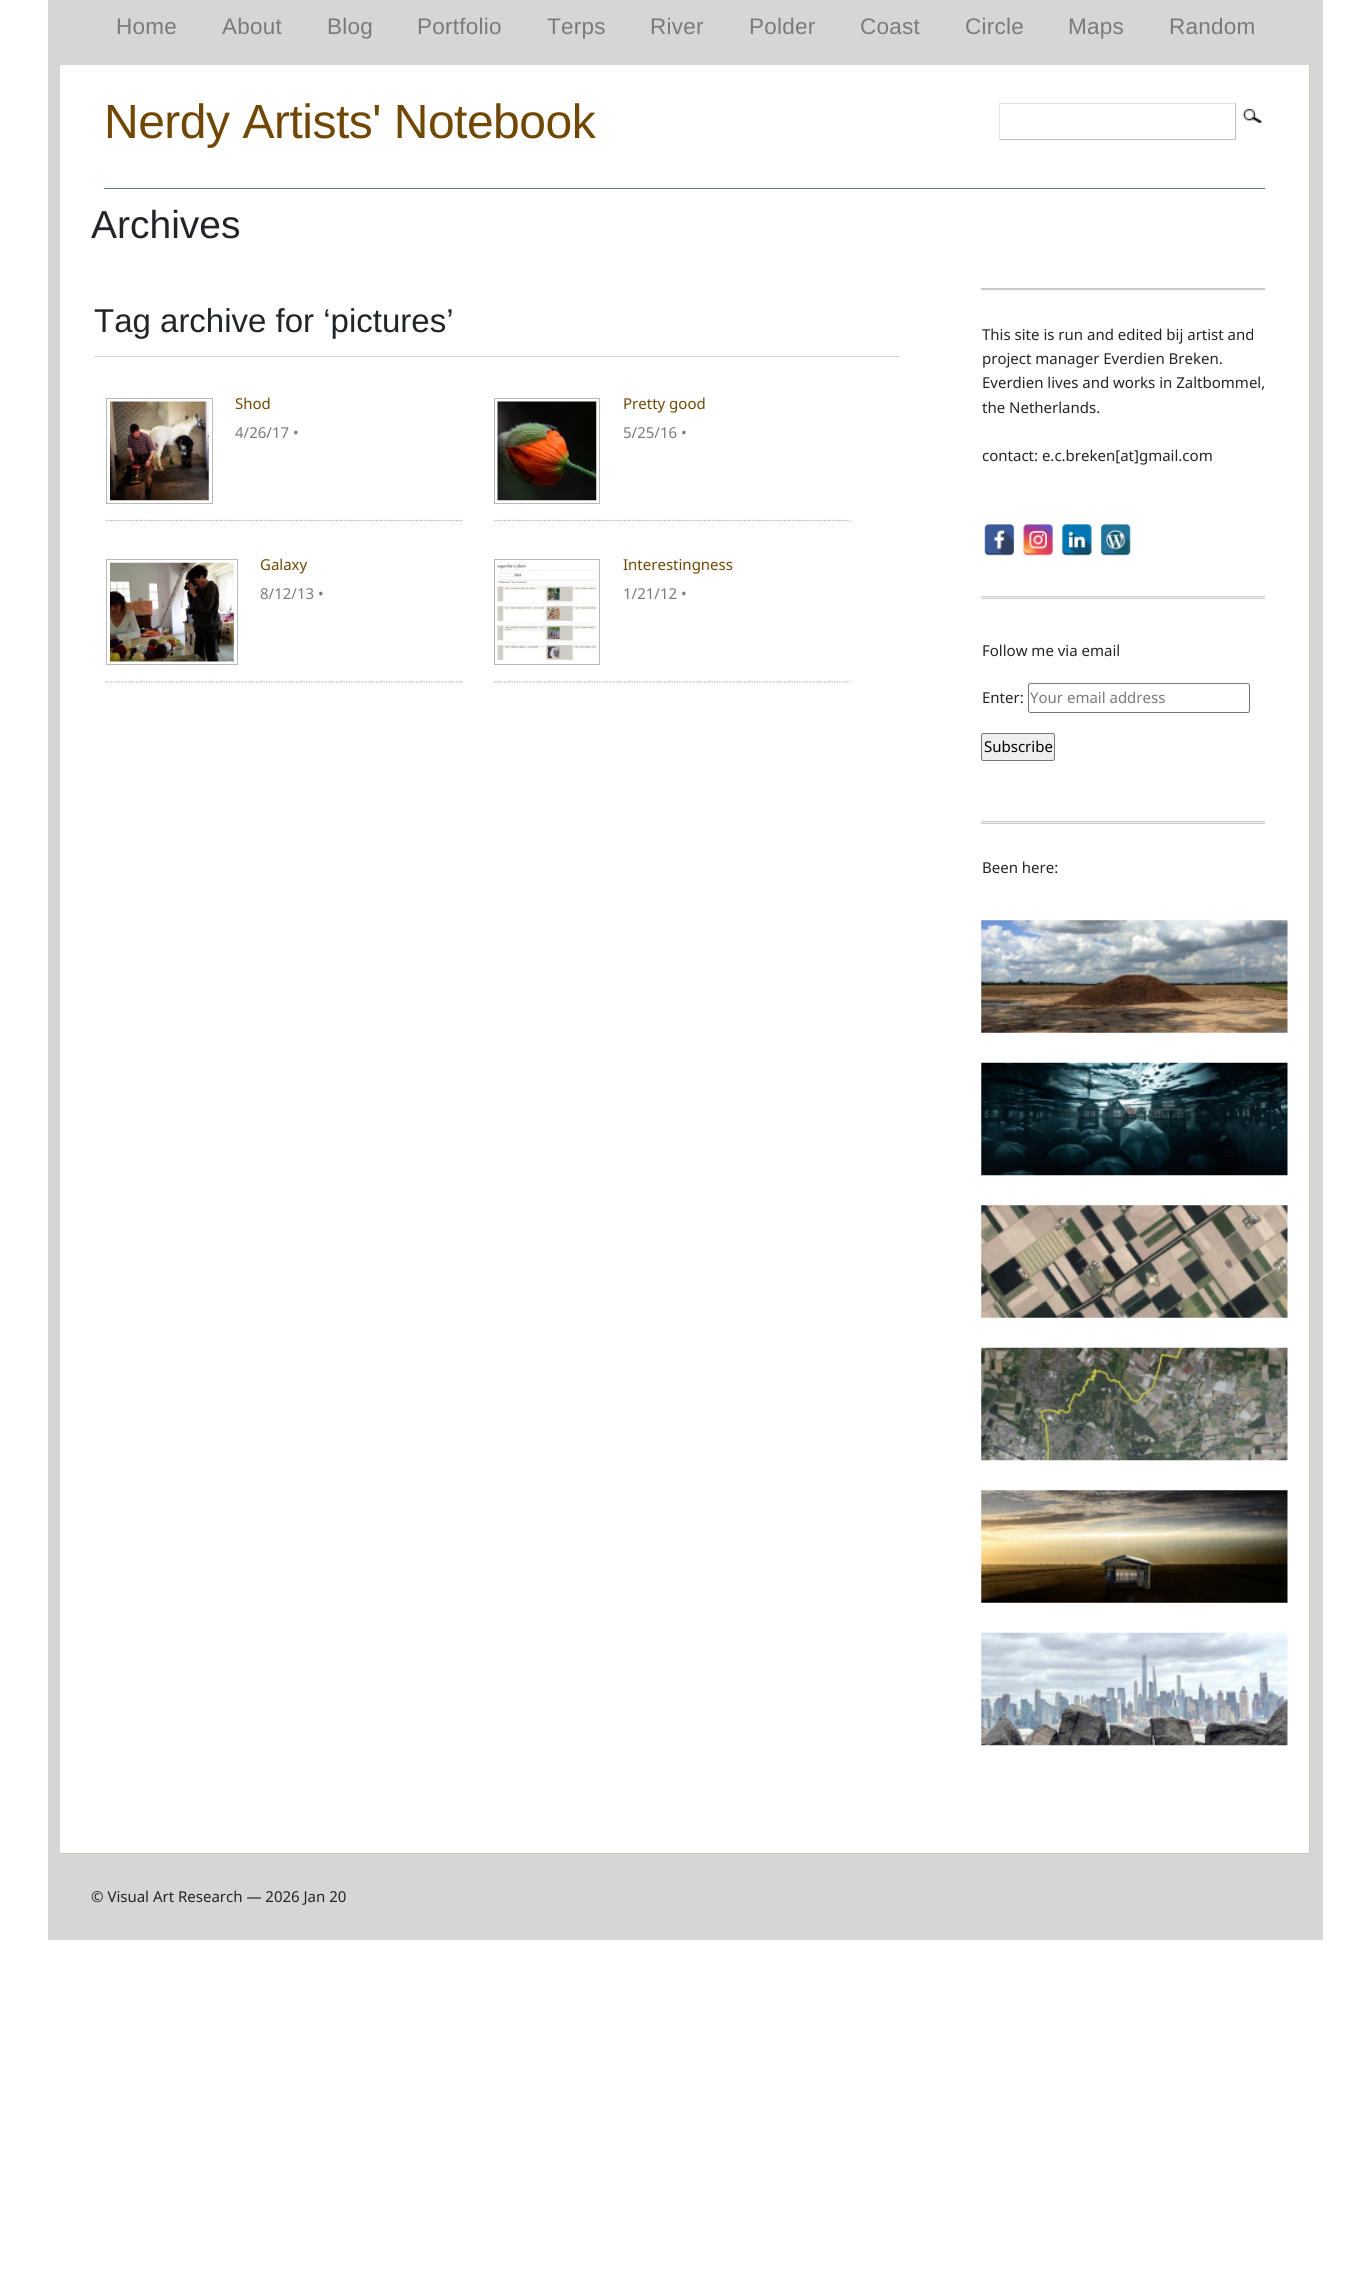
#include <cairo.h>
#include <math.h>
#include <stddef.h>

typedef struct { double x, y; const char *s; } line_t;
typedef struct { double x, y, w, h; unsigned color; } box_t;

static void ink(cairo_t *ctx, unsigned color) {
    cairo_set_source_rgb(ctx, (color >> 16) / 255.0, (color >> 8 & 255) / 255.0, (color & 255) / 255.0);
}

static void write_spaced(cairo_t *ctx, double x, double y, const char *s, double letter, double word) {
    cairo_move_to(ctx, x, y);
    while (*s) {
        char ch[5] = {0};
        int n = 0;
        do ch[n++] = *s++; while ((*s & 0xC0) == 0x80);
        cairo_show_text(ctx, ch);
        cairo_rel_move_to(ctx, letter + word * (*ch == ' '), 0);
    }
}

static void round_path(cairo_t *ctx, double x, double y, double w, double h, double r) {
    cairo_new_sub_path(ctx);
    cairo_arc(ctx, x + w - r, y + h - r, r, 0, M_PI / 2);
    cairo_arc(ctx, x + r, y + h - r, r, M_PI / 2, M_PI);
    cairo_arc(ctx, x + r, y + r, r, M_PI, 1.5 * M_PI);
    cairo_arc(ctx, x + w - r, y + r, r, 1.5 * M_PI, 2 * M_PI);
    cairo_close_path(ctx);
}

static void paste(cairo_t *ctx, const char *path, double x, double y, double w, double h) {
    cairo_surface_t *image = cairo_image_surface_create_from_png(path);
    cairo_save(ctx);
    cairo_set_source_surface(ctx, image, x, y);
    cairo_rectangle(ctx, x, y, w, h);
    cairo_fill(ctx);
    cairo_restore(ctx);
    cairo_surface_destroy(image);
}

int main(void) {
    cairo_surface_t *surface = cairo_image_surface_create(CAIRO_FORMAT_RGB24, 1370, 2291);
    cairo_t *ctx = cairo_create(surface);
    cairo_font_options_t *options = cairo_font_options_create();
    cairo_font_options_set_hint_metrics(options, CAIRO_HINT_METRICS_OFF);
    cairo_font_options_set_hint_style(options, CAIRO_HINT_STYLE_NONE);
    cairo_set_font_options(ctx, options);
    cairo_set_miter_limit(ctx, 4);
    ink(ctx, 0xFFFFFF);
    cairo_paint(ctx);
    ink(ctx, 0xD6D6D5);
    cairo_rectangle(ctx, 48, 0, 1275, 1940);
    cairo_fill(ctx);
    cairo_select_font_face(ctx, "Liberation Sans", CAIRO_FONT_SLANT_NORMAL, CAIRO_FONT_WEIGHT_NORMAL);
    cairo_set_font_size(ctx, 22.5);
    ink(ctx, 0x7A7A7A);
    {
        static const line_t items[] = {
            {116, 34, "Home"},
            {222, 34, "About"},
            {327, 34, "Blog"},
            {417, 34, "Portfolio"},
            {547, 34, "Terps"},
            {650, 34, "River"},
            {749, 34, "Polder"},
            {860, 34, "Coast"},
            {965, 34, "Circle"},
            {1068, 34, "Maps"},
            {1169, 34, "Random"},
        };
        for (size_t i = 0; i < sizeof items / sizeof *items; i++) {
            write_spaced(ctx, items[i].x, items[i].y, items[i].s, 0.25, 0);
        }
    }
    {
        static const box_t items[] = {
            {60, 65, 1249, 1788, 0xFFFFFF},
            {1309, 65, 1, 1789, 0xCAC8C2},
            {60, 1853, 1250, 1, 0xCAC8C2},
            {104, 188, 1161, 1, 0x607B88},
        };
        for (size_t i = 0; i < sizeof items / sizeof *items; i++) {
            ink(ctx, items[i].color);
            cairo_rectangle(ctx, items[i].x, items[i].y, items[i].w, items[i].h);
            cairo_fill(ctx);
        }
    }
    cairo_set_font_size(ctx, 48);
    ink(ctx, 0x704704);
    write_spaced(ctx, 104, 138, "Nerdy Artists' Notebook", -0.5, 0);
    {
        static const box_t items[] = {
            {999, 103, 237, 1, 0xE2E2E2},
            {1235, 103, 1, 37, 0xBFBFBF},
            {999, 139, 237, 1, 0xBFBFBF},
            {999, 103, 1, 37, 0xE2E2E2},
        };
        for (size_t i = 0; i < sizeof items / sizeof *items; i++) {
            ink(ctx, items[i].color);
            cairo_rectangle(ctx, items[i].x, items[i].y, items[i].w, items[i].h);
            cairo_fill(ctx);
        }
    }
    paste(ctx, "media/1.png", 1243, 108, 19, 15);
    cairo_set_font_size(ctx, 39);
    ink(ctx, 0x212529);
    cairo_move_to(ctx, 91, 238);
    cairo_show_text(ctx, "Archives");
    ink(ctx, 0xD7D7D7);
    cairo_rectangle(ctx, 94, 356, 806, 1);
    cairo_fill(ctx);
    cairo_set_font_size(ctx, 33);
    ink(ctx, 0x212529);
    cairo_move_to(ctx, 94, 332);
    cairo_show_text(ctx, "Tag archive for ‘pictures’");
    cairo_new_path(ctx);
    cairo_move_to(ctx, 106, 520.5);
    cairo_line_to(ctx, 462.5, 520.5);
    ink(ctx, 0xB1B1B1);
    cairo_set_line_width(ctx, 1.2);
    cairo_set_dash(ctx, (double[]){1.25, 1.25}, 2, 0);
    cairo_stroke(ctx);
    cairo_rectangle(ctx, 106.5, 398.5, 106, 105);
    ink(ctx, 0xB9B9B9);
    cairo_set_line_width(ctx, 1);
    cairo_set_dash(ctx, NULL, 0, 0);
    cairo_stroke(ctx);
    paste(ctx, "media/2.png", 110, 401, 99, 100);
    cairo_select_font_face(ctx, "Noto Sans", CAIRO_FONT_SLANT_NORMAL, CAIRO_FONT_WEIGHT_NORMAL);
    cairo_set_font_size(ctx, 15);
    ink(ctx, 0x704704);
    cairo_move_to(ctx, 235, 409);
    cairo_show_text(ctx, "Shod");
    ink(ctx, 0x7A7A7A);
    cairo_move_to(ctx, 235, 438);
    cairo_show_text(ctx, "4/26/17 •");
    cairo_new_path(ctx);
    cairo_move_to(ctx, 494, 520.5);
    cairo_line_to(ctx, 850, 520.5);
    ink(ctx, 0xB1B1B1);
    cairo_set_line_width(ctx, 1.2);
    cairo_set_dash(ctx, (double[]){1.25, 1.25}, 2, 0);
    cairo_stroke(ctx);
    cairo_rectangle(ctx, 494.5, 398.5, 105, 105);
    ink(ctx, 0xB9B9B9);
    cairo_set_line_width(ctx, 1);
    cairo_set_dash(ctx, NULL, 0, 0);
    cairo_stroke(ctx);
    paste(ctx, "media/3.png", 497, 401, 100, 100);
    ink(ctx, 0x704704);
    cairo_move_to(ctx, 623, 409);
    cairo_show_text(ctx, "Pretty good");
    ink(ctx, 0x7A7A7A);
    cairo_move_to(ctx, 623, 438);
    cairo_show_text(ctx, "5/25/16 •");
    cairo_new_path(ctx);
    cairo_move_to(ctx, 106, 682);
    cairo_line_to(ctx, 462.5, 682);
    ink(ctx, 0xB1B1B1);
    cairo_set_line_width(ctx, 1.2);
    cairo_set_dash(ctx, (double[]){1.25, 1.25}, 2, 0);
    cairo_stroke(ctx);
    cairo_rectangle(ctx, 106.5, 559.5, 131, 105);
    ink(ctx, 0xB9B9B9);
    cairo_set_line_width(ctx, 1);
    cairo_set_dash(ctx, NULL, 0, 0);
    cairo_stroke(ctx);
    paste(ctx, "media/4.png", 110, 562, 124, 100);
    ink(ctx, 0x704704);
    cairo_move_to(ctx, 260, 570);
    cairo_show_text(ctx, "Galaxy");
    ink(ctx, 0x7A7A7A);
    cairo_move_to(ctx, 260, 599);
    cairo_show_text(ctx, "8/12/13 •");
    cairo_new_path(ctx);
    cairo_move_to(ctx, 494, 682);
    cairo_line_to(ctx, 850, 682);
    ink(ctx, 0xB1B1B1);
    cairo_set_line_width(ctx, 1.2);
    cairo_set_dash(ctx, (double[]){1.25, 1.25}, 2, 0);
    cairo_stroke(ctx);
    cairo_rectangle(ctx, 494.5, 559.5, 105, 105);
    ink(ctx, 0xB9B9B9);
    cairo_set_line_width(ctx, 1);
    cairo_set_dash(ctx, NULL, 0, 0);
    cairo_stroke(ctx);
    paste(ctx, "media/5.png", 497, 563, 100, 98);
    ink(ctx, 0x704704);
    cairo_move_to(ctx, 623, 570);
    cairo_show_text(ctx, "Interestingness");
    ink(ctx, 0x7A7A7A);
    cairo_move_to(ctx, 623, 599);
    cairo_show_text(ctx, "1/21/12 •");
    ink(ctx, 0xF5F5F5);
    cairo_rectangle(ctx, 981, 290, 284, 1);
    cairo_fill(ctx);
    ink(ctx, 0xC8C9CA);
    cairo_rectangle(ctx, 981, 288, 284, 2);
    cairo_fill(ctx);
    ink(ctx, 0x212529);
    {
        static const line_t items[] = {
            {982, 340, "This site is run and edited bij artist and"},
            {982, 364, "project manager Everdien Breken."},
            {982, 388, "Everdien lives and works in Zaltbommel,"},
            {982, 413, "the Netherlands."},
            {982, 461, "contact: e.c.breken[at]gmail.com"},
        };
        for (size_t i = 0; i < sizeof items / sizeof *items; i++) {
            cairo_move_to(ctx, items[i].x, items[i].y);
            cairo_show_text(ctx, items[i].s);
        }
    }
    paste(ctx, "media/6.png", 984, 524, 31, 32);
    paste(ctx, "media/7.png", 1023, 524, 30, 32);
    paste(ctx, "media/8.png", 1062, 524, 30, 32);
    paste(ctx, "media/9.png", 1101, 524, 30, 32);
    {
        static const box_t items[] = {
            {981, 597, 284, 1, 0xF5F5F5},
            {981, 596, 284, 1, 0xC8C9CA},
            {981, 598, 284, 1, 0xC8C9CA},
        };
        for (size_t i = 0; i < sizeof items / sizeof *items; i++) {
            ink(ctx, items[i].color);
            cairo_rectangle(ctx, items[i].x, items[i].y, items[i].w, items[i].h);
            cairo_fill(ctx);
        }
    }
    ink(ctx, 0x212529);
    cairo_move_to(ctx, 982, 656);
    cairo_show_text(ctx, "Follow me via email");
    cairo_move_to(ctx, 982, 703);
    cairo_show_text(ctx, "Enter:");
    round_path(ctx, 1028.5, 683.5, 221, 29, 2);
    ink(ctx, 0x767676);
    cairo_stroke(ctx);
    ink(ctx, 0x7A7A7A);
    cairo_move_to(ctx, 1030, 703);
    cairo_show_text(ctx, "Your email address");
    ink(ctx, 0xEFEFEF);
    round_path(ctx, 981.5, 733.5, 73, 27, 2);
    cairo_fill_preserve(ctx);
    ink(ctx, 0x767676);
    cairo_stroke(ctx);
    ink(ctx, 0x000000);
    cairo_move_to(ctx, 984, 752);
    cairo_show_text(ctx, "Subscribe");
    {
        static const box_t items[] = {
            {981, 822, 284, 1, 0xF5F5F5},
            {981, 821, 284, 1, 0xC8C9CA},
            {981, 823, 284, 1, 0xC8C9CA},
        };
        for (size_t i = 0; i < sizeof items / sizeof *items; i++) {
            ink(ctx, items[i].color);
            cairo_rectangle(ctx, items[i].x, items[i].y, items[i].w, items[i].h);
            cairo_fill(ctx);
        }
    }
    ink(ctx, 0x212529);
    cairo_move_to(ctx, 982, 873);
    cairo_show_text(ctx, "Been here:");
    paste(ctx, "media/10.png", 981, 920, 307, 113);
    paste(ctx, "media/11.png", 981, 1062, 307, 114);
    paste(ctx, "media/12.png", 981, 1205, 307, 113);
    paste(ctx, "media/13.png", 981, 1347, 307, 114);
    paste(ctx, "media/14.png", 981, 1490, 307, 113);
    paste(ctx, "media/15.png", 981, 1632, 307, 114);
    cairo_move_to(ctx, 91, 1902);
    cairo_show_text(ctx, "© Visual Art Research — 2026 Jan 20");
    cairo_surface_write_to_png(surface, "image.png");
    cairo_font_options_destroy(options);
    cairo_destroy(ctx);
    cairo_surface_destroy(surface);
    return 0;
}
